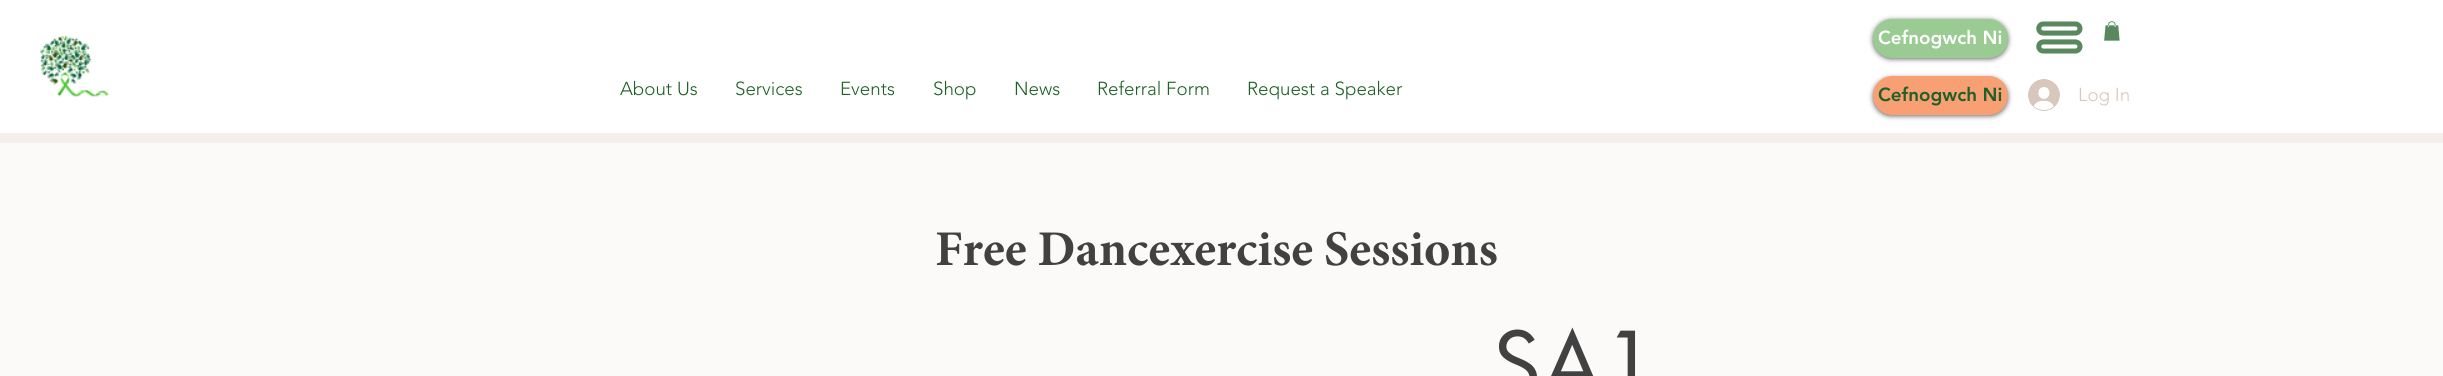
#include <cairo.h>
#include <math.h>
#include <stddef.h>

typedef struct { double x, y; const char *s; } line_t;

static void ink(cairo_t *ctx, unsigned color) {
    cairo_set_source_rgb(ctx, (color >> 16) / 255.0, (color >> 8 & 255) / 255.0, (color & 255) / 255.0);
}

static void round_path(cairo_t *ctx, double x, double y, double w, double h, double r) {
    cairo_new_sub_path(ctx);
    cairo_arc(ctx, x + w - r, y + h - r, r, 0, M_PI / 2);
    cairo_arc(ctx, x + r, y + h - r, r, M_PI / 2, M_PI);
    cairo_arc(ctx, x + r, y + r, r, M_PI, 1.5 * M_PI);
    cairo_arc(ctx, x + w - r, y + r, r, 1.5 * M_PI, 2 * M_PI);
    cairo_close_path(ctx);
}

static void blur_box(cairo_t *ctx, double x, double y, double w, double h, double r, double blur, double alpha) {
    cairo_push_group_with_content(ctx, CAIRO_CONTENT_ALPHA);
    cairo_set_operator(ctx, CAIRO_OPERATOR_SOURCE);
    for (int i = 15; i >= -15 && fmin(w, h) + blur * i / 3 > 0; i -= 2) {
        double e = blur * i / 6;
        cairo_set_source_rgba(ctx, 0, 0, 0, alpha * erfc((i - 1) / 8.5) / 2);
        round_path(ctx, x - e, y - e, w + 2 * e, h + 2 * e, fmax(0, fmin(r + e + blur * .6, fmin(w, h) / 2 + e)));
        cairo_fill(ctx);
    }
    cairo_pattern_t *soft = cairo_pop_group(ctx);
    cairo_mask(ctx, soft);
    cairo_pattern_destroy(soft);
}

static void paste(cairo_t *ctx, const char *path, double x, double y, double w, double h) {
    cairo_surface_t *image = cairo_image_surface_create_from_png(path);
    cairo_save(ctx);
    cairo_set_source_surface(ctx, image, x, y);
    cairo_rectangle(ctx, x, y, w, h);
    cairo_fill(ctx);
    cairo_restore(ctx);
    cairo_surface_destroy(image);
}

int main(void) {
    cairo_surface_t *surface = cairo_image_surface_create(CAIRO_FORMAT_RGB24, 2443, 376);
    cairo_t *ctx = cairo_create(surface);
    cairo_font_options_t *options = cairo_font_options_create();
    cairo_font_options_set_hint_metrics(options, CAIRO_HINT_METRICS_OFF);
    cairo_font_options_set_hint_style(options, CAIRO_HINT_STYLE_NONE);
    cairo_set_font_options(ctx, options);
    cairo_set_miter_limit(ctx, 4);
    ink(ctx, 0xF4EFEB);
    cairo_paint(ctx);
    ink(ctx, 0xFFFFFF);
    cairo_rectangle(ctx, 0, 0, 2443, 133);
    cairo_fill(ctx);
    paste(ctx, "media/1.png", 39, 35, 70, 62);
    cairo_select_font_face(ctx, "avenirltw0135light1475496 Light", CAIRO_FONT_SLANT_NORMAL, CAIRO_FONT_WEIGHT_NORMAL);
    cairo_set_font_size(ctx, 18.75);
    ink(ctx, 0x1E6027);
    {
        static const line_t items[] = {
            {620, 95, "About Us"},
            {735, 95, "Services"},
            {840, 95, "Events"},
            {933, 95, "Shop"},
            {1014, 95, "News"},
            {1097, 95, "Referral Form"},
            {1247, 95, "Request a Speaker"},
        };
        for (size_t i = 0; i < sizeof items / sizeof *items; i++) {
            cairo_move_to(ctx, items[i].x, items[i].y);
            cairo_show_text(ctx, items[i].s);
        }
    }
    ink(ctx, 0x000000);
    blur_box(ctx, 1873, 20, 135, 39, 19.5, 2.5, 0.6);
    ink(ctx, 0x9ACB92);
    round_path(ctx, 1873, 19, 135, 39, 19.5);
    cairo_fill(ctx);
    cairo_select_font_face(ctx, "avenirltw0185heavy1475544 Black", CAIRO_FONT_SLANT_NORMAL, CAIRO_FONT_WEIGHT_NORMAL);
    ink(ctx, 0xFFFFFF);
    cairo_move_to(ctx, 1878, 44);
    cairo_show_text(ctx, "Cefnogwch Ni");
    paste(ctx, "media/2.png", 2036, 21, 47, 33);
    paste(ctx, "media/3.png", 2104, 21, 16, 20);
    ink(ctx, 0x000000);
    blur_box(ctx, 1873, 78, 135, 38, 19, 2.5, 0.6);
    ink(ctx, 0xF89F73);
    round_path(ctx, 1873, 76, 135, 39, 19.5);
    cairo_fill(ctx);
    ink(ctx, 0x1E6027);
    cairo_move_to(ctx, 1878, 101);
    cairo_show_text(ctx, "Cefnogwch Ni");
    paste(ctx, "media/4.png", 2028, 79, 32, 32);
    cairo_select_font_face(ctx, "avenirltw0135light1475496 Light", CAIRO_FONT_SLANT_NORMAL, CAIRO_FONT_WEIGHT_NORMAL);
    ink(ctx, 0xD8C7BD);
    cairo_move_to(ctx, 2078, 101);
    cairo_show_text(ctx, "Log In");
    ink(ctx, 0xFCFAF9);
    cairo_rectangle(ctx, 0, 143, 2443, 233);
    cairo_fill(ctx);
    paste(ctx, "media/5.png", 936, 231, 561, 35);
    cairo_select_font_face(ctx, "futura", CAIRO_FONT_SLANT_NORMAL, CAIRO_FONT_WEIGHT_NORMAL);
    cairo_set_font_size(ctx, 88);
    ink(ctx, 0x414141);
    cairo_move_to(ctx, 1492, 397);
    cairo_show_text(ctx, "SA1");
    cairo_surface_write_to_png(surface, "image.png");
    cairo_font_options_destroy(options);
    cairo_destroy(ctx);
    cairo_surface_destroy(surface);
    return 0;
}
